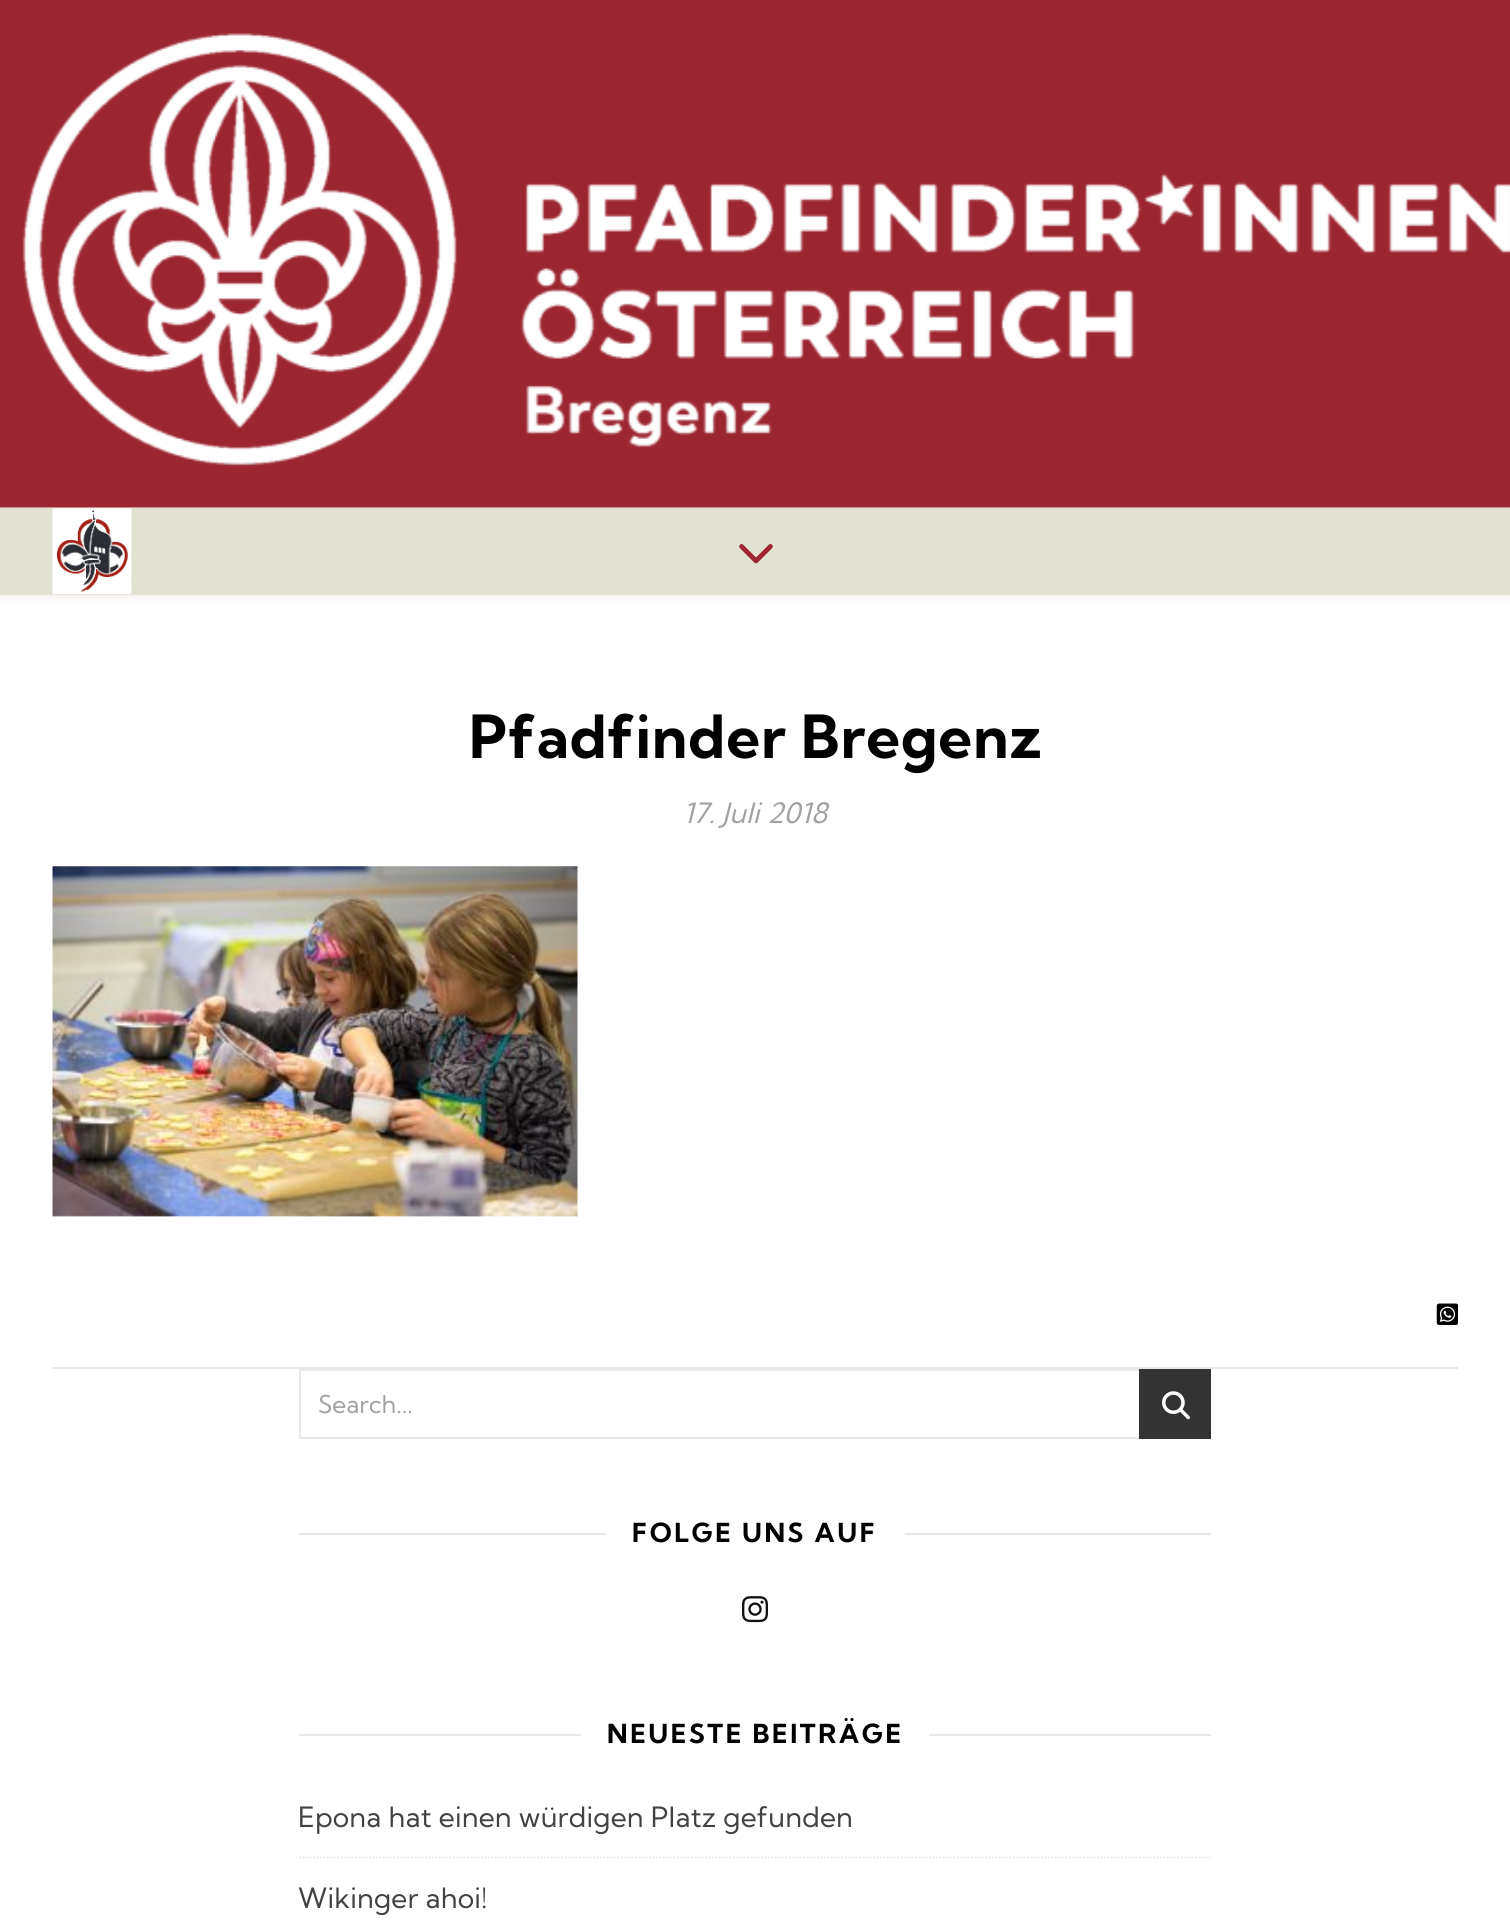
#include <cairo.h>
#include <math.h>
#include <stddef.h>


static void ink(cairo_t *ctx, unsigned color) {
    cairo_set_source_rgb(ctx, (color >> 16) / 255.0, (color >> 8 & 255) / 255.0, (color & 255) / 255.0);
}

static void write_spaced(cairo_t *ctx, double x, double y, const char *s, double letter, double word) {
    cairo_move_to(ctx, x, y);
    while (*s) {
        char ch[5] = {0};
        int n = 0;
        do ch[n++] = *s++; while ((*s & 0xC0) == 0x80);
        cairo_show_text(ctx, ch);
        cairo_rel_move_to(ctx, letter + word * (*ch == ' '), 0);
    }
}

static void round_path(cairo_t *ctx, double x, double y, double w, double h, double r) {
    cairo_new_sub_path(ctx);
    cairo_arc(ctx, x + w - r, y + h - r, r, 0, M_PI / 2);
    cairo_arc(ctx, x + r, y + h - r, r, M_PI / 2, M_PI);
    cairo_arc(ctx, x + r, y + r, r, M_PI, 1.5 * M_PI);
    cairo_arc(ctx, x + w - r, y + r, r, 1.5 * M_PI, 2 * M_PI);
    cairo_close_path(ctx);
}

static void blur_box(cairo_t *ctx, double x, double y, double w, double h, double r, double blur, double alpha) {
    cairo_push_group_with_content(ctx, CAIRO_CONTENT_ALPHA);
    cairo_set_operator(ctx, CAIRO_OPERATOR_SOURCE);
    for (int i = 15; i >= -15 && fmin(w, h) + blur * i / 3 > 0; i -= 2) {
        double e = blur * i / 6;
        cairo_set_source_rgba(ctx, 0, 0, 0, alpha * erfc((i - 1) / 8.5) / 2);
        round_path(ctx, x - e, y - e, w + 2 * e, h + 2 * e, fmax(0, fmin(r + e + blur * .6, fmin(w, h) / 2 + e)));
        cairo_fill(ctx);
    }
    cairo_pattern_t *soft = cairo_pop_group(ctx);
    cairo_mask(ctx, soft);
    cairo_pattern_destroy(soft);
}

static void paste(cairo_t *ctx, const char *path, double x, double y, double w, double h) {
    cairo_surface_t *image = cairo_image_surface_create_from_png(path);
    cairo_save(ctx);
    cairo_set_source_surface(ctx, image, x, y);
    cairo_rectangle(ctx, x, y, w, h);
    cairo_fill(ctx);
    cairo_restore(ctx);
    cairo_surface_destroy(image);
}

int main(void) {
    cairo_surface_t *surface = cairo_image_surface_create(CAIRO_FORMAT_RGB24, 1510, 1922);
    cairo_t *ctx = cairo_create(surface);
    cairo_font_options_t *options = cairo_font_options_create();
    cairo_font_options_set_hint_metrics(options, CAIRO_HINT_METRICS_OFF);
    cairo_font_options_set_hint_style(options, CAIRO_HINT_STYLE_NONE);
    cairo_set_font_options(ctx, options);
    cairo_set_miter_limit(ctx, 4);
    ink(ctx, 0xFFFFFF);
    cairo_paint(ctx);
    paste(ctx, "media/1.png", 0, 0, 1510, 508);
    ink(ctx, 0x9D2632);
    blur_box(ctx, 0, 509, 1510, 88, 0, 4.5, 0.1);
    ink(ctx, 0xE2E2D3);
    cairo_rectangle(ctx, 0, 508, 1510, 87);
    cairo_fill(ctx);
    paste(ctx, "media/2.png", 52, 508, 80, 87);
    paste(ctx, "media/3.png", 739, 544, 34, 20);
    cairo_select_font_face(ctx, "Kumbh Sans", CAIRO_FONT_SLANT_NORMAL, CAIRO_FONT_WEIGHT_BOLD);
    cairo_set_font_size(ctx, 59.5);
    ink(ctx, 0x000000);
    write_spaced(ctx, 469, 758, "Pfadfinder Bregenz", 0.9, 0);
    cairo_select_font_face(ctx, "Kumbh Sans", CAIRO_FONT_SLANT_ITALIC, CAIRO_FONT_WEIGHT_NORMAL);
    cairo_set_font_size(ctx, 28);
    ink(ctx, 0xA1A1A1);
    write_spaced(ctx, 683, 823, "17. Juli 2018", 0.2, 0);
    paste(ctx, "media/4.png", 52, 866, 526, 351);
    ink(ctx, 0xE8E8E8);
    cairo_rectangle(ctx, 53, 1367, 1405, 2);
    cairo_fill(ctx);
    paste(ctx, "media/5.png", 1436, 1303, 22, 22);
    cairo_rectangle(ctx, 300, 1370, 910, 68);
    cairo_stroke(ctx);
    cairo_select_font_face(ctx, "Kumbh Sans", CAIRO_FONT_SLANT_NORMAL, CAIRO_FONT_WEIGHT_NORMAL);
    cairo_set_font_size(ctx, 24.5);
    ink(ctx, 0xA1A1A1);
    cairo_move_to(ctx, 318, 1413);
    cairo_show_text(ctx, "Search...");
    ink(ctx, 0x333333);
    cairo_rectangle(ctx, 1139, 1369, 72, 70);
    cairo_fill(ctx);
    paste(ctx, "media/6.png", 1162, 1391, 28, 29);
    ink(ctx, 0xE8E8E8);
    cairo_rectangle(ctx, 299, 1533, 307, 2);
    cairo_fill(ctx);
    cairo_select_font_face(ctx, "Kumbh Sans", CAIRO_FONT_SLANT_NORMAL, CAIRO_FONT_WEIGHT_BOLD);
    cairo_set_font_size(ctx, 26.25);
    ink(ctx, 0x000000);
    write_spaced(ctx, 632, 1542, "FOLGE UNS AUF", 2.6, 0);
    ink(ctx, 0xE8E8E8);
    cairo_rectangle(ctx, 905, 1533, 306, 2);
    cairo_fill(ctx);
    paste(ctx, "media/7.png", 742, 1596, 27, 27);
    cairo_rectangle(ctx, 299, 1734, 282, 2);
    cairo_fill(ctx);
    ink(ctx, 0x000000);
    write_spaced(ctx, 607, 1743, "NEUESTE BEITRÄGE", 2.6, 0);
    ink(ctx, 0xE8E8E8);
    cairo_rectangle(ctx, 929, 1734, 282, 2);
    cairo_fill(ctx);
    cairo_new_path(ctx);
    cairo_move_to(ctx, 299, 1857.5);
    cairo_line_to(ctx, 1211, 1857.5);
    cairo_set_line_width(ctx, 1.8);
    cairo_set_dash(ctx, (double[]){1.75, 1.75}, 2, 0);
    cairo_stroke(ctx);
    cairo_select_font_face(ctx, "Kumbh Sans", CAIRO_FONT_SLANT_NORMAL, CAIRO_FONT_WEIGHT_NORMAL);
    cairo_set_font_size(ctx, 28);
    ink(ctx, 0x424242);
    write_spaced(ctx, 298, 1827, "Epona hat einen würdigen Platz gefunden", 0.2, 0);
    write_spaced(ctx, 298, 1908, "Wikinger ahoi!", 0.2, 0);
    cairo_surface_write_to_png(surface, "image.png");
    cairo_font_options_destroy(options);
    cairo_destroy(ctx);
    cairo_surface_destroy(surface);
    return 0;
}
